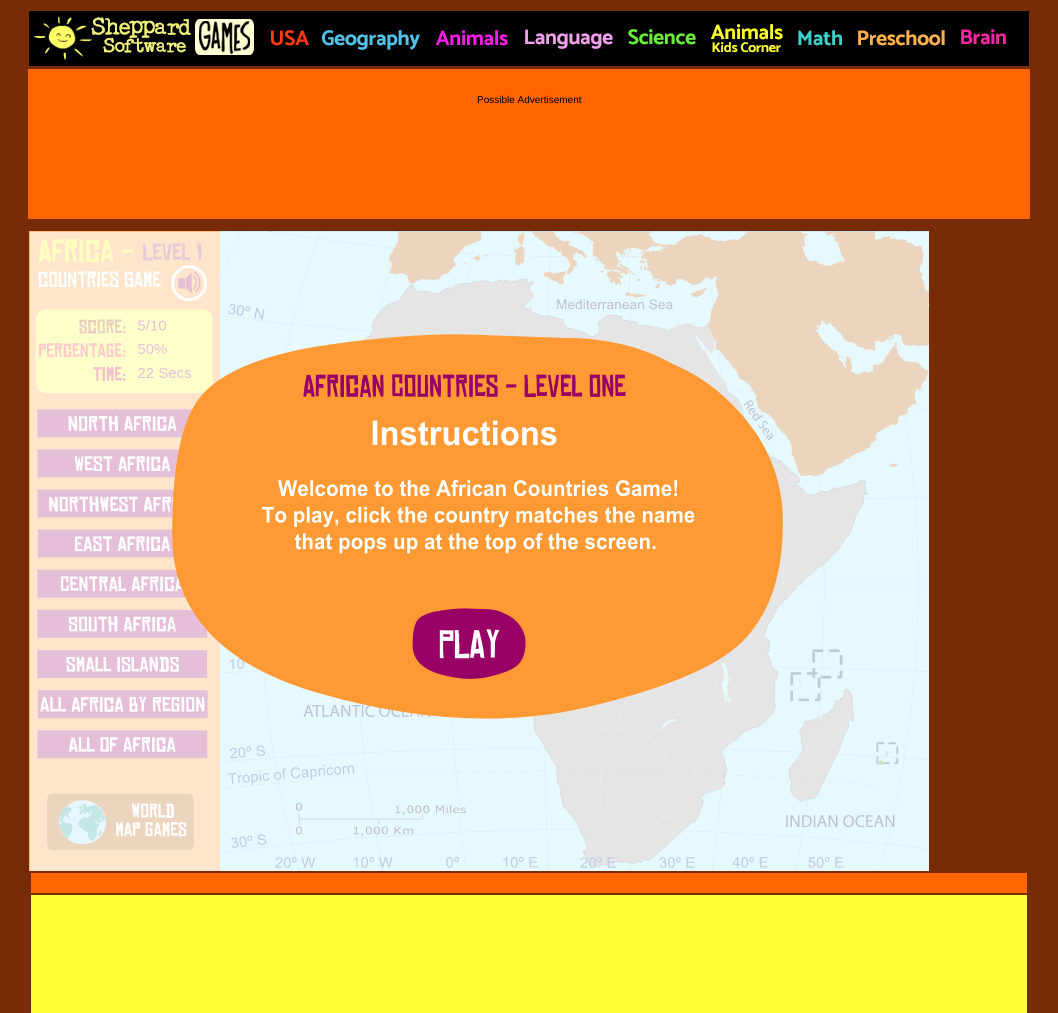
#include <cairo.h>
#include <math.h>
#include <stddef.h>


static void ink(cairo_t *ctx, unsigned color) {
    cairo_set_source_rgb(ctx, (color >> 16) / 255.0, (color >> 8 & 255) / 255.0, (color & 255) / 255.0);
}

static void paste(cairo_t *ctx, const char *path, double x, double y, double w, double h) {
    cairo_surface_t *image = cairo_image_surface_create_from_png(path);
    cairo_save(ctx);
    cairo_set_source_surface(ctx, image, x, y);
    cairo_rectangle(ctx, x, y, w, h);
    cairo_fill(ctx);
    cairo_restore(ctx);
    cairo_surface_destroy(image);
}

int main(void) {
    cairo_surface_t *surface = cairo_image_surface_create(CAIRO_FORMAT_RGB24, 1058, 1013);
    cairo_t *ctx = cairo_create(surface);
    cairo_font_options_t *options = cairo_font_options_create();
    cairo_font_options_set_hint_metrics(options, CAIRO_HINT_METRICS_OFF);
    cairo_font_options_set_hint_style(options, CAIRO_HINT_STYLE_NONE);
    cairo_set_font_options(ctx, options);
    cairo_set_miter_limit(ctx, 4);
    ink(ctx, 0x772B06);
    cairo_paint(ctx);
    paste(ctx, "media/1.png", 29, 11, 1000, 55);
    ink(ctx, 0xFF6600);
    cairo_rectangle(ctx, 28, 69, 1002, 150);
    cairo_fill(ctx);
    cairo_select_font_face(ctx, "Liberation Sans", CAIRO_FONT_SLANT_NORMAL, CAIRO_FONT_WEIGHT_NORMAL);
    cairo_set_font_size(ctx, 10);
    ink(ctx, 0x000000);
    cairo_move_to(ctx, 477, 103);
    cairo_show_text(ctx, "Possible Advertisement");
    paste(ctx, "media/2.png", 29, 231, 900, 640);
    ink(ctx, 0xFF6600);
    cairo_rectangle(ctx, 31, 873, 996, 20);
    cairo_fill(ctx);
    ink(ctx, 0xFFFF33);
    cairo_rectangle(ctx, 31, 895, 996, 118);
    cairo_fill(ctx);
    cairo_surface_write_to_png(surface, "image.png");
    cairo_font_options_destroy(options);
    cairo_destroy(ctx);
    cairo_surface_destroy(surface);
    return 0;
}
